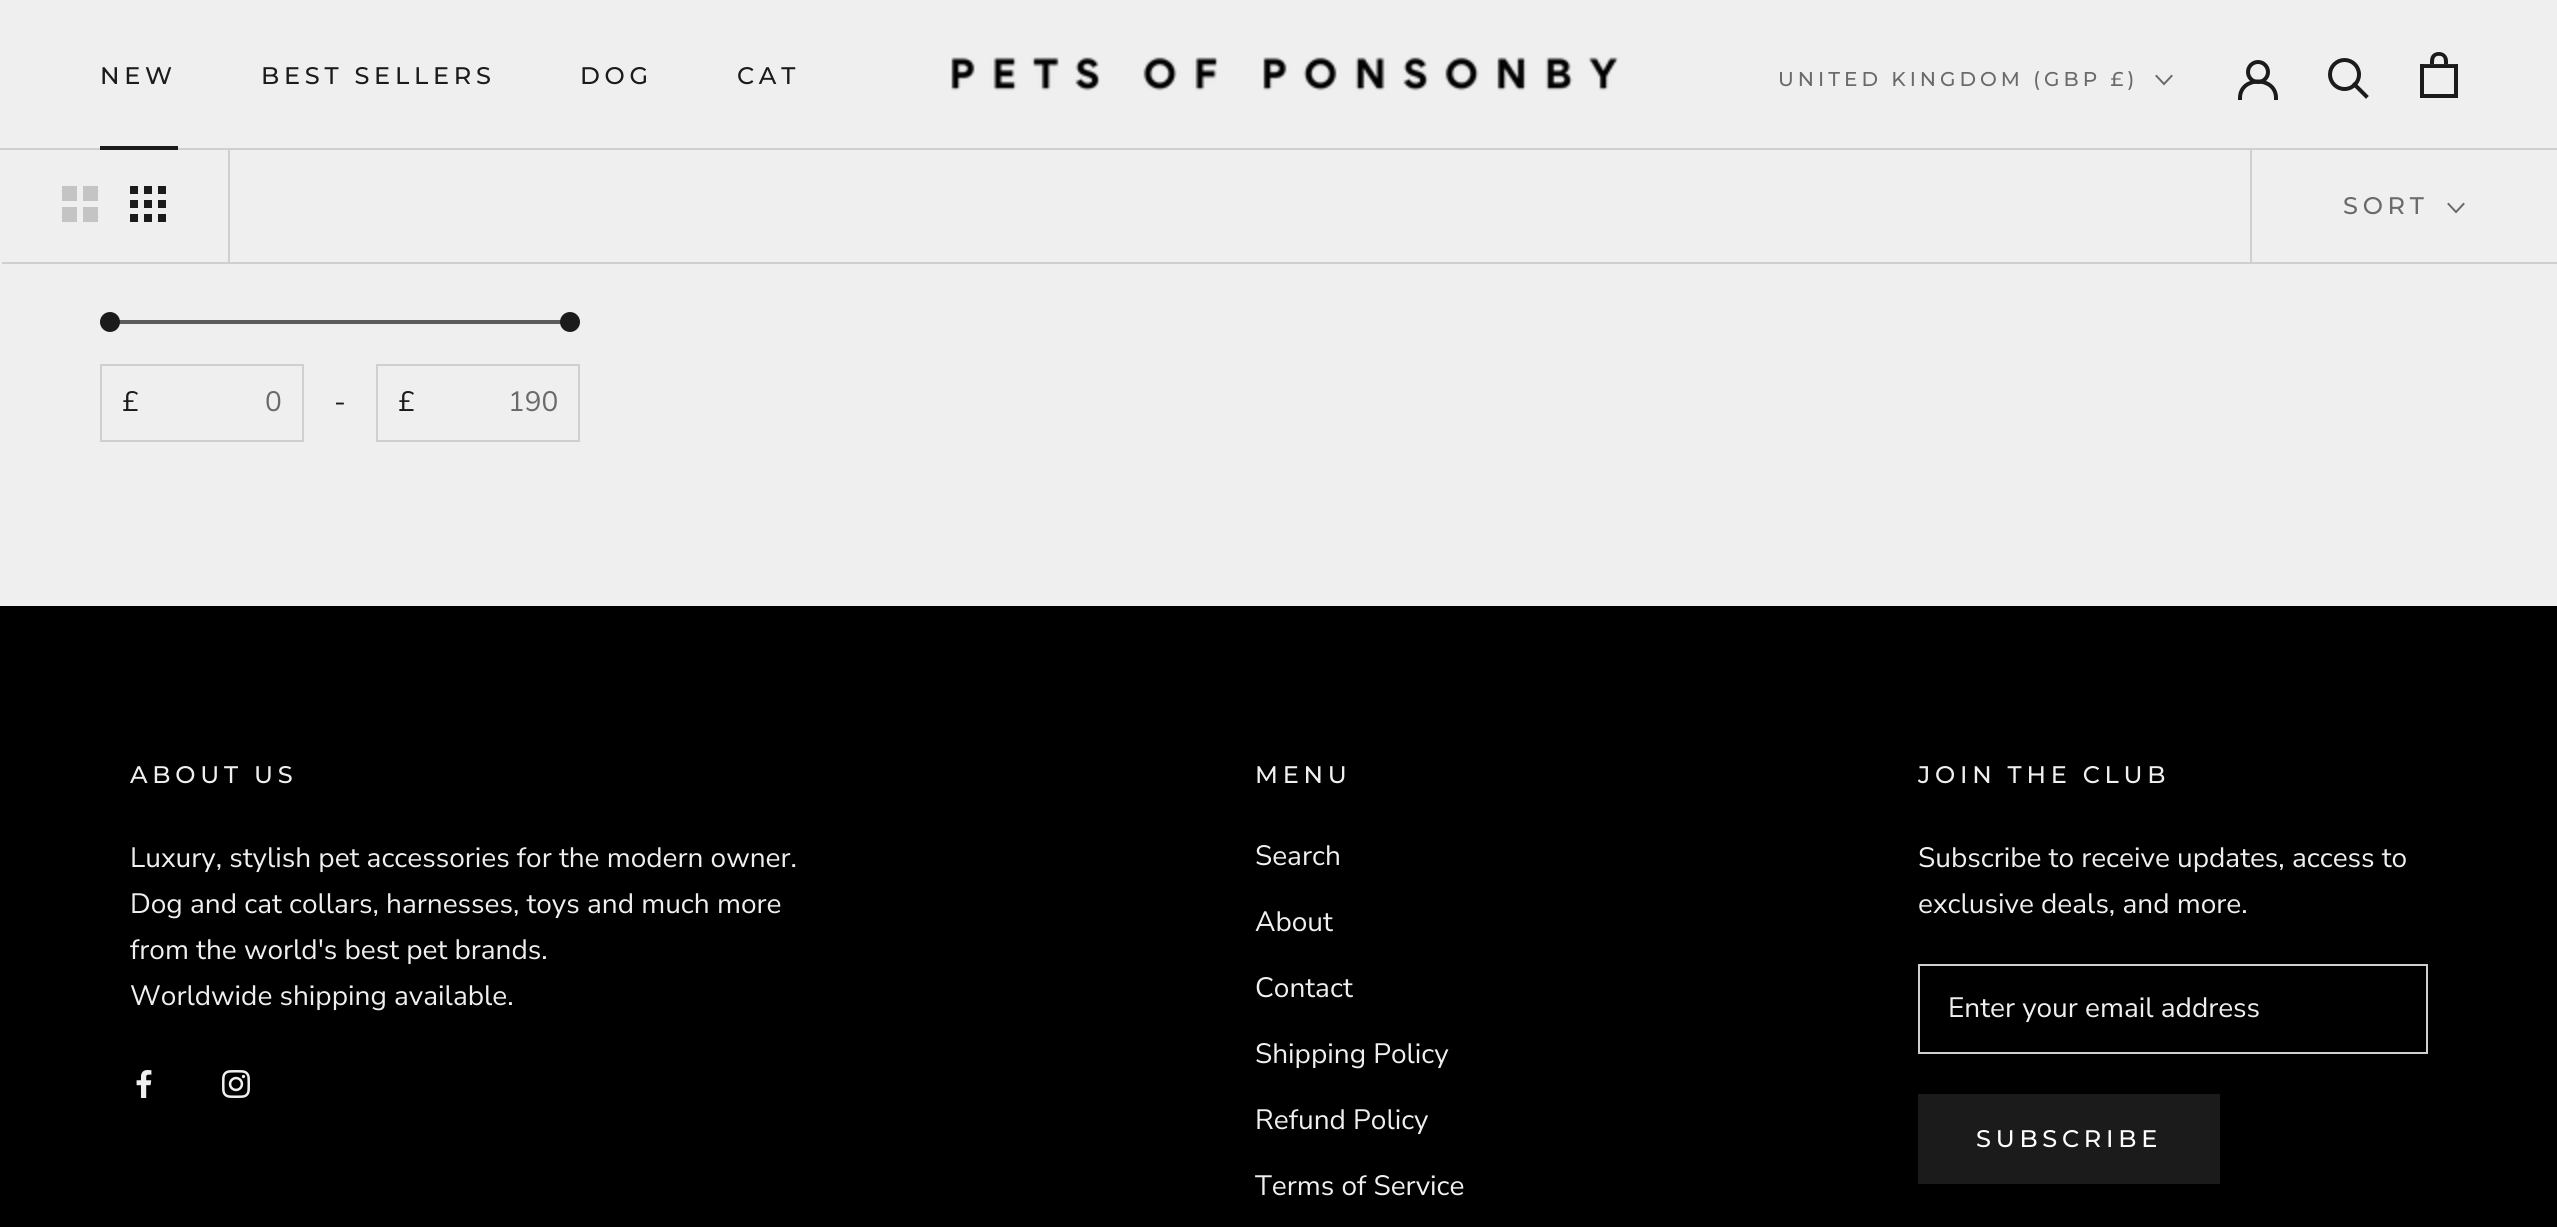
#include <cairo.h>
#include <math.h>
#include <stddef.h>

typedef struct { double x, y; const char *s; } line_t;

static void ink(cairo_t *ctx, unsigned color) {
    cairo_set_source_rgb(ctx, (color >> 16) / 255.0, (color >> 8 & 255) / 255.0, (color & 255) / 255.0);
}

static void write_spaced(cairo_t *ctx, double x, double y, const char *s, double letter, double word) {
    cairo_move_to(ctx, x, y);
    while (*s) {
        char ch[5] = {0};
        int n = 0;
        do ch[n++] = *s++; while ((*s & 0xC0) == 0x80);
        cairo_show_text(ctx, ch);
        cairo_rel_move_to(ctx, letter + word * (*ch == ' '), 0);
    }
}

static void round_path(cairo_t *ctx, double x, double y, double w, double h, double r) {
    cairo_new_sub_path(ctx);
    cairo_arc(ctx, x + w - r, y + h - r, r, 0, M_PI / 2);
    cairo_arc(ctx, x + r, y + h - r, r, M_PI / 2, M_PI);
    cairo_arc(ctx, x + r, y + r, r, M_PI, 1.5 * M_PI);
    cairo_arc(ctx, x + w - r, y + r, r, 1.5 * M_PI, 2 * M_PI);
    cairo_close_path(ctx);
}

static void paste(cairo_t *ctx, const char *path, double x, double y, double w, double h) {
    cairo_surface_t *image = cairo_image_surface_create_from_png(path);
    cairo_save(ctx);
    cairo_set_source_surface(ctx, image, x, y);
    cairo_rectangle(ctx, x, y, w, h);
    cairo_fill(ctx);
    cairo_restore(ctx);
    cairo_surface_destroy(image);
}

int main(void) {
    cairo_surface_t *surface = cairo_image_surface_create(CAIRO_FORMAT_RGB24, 2557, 1227);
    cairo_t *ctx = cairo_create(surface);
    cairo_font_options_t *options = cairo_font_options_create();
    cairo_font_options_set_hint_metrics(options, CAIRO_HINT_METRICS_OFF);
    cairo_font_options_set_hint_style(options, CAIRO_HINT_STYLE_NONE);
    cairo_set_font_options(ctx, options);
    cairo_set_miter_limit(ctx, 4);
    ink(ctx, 0xEFEFEF);
    cairo_paint(ctx);
    ink(ctx, 0xCFCFCF);
    cairo_rectangle(ctx, 0, 148, 2557, 2);
    cairo_fill(ctx);
    cairo_select_font_face(ctx, "Montserrat Medium", CAIRO_FONT_SLANT_NORMAL, CAIRO_FONT_WEIGHT_NORMAL);
    cairo_set_font_size(ctx, 24);
    ink(ctx, 0x1C1B1B);
    write_spaced(ctx, 100, 84, "NEW", 4.75, 0);
    cairo_rectangle(ctx, 100, 146, 78, 4);
    cairo_fill(ctx);
    {
        static const line_t items[] = {
            {261, 84, "BEST SELLERS"},
            {580, 84, "DOG"},
            {737, 84, "CAT"},
        };
        for (size_t i = 0; i < sizeof items / sizeof *items; i++) {
            write_spaced(ctx, items[i].x, items[i].y, items[i].s, 4.75, 0);
        }
    }
    paste(ctx, "media/1.png", 951, 57, 668, 34);
    cairo_set_font_size(ctx, 20);
    ink(ctx, 0x6A6A6A);
    write_spaced(ctx, 1778, 86, "UNITED KINGDOM (GBP £)", 4, 0);
    cairo_new_path(ctx);
    cairo_move_to(ctx, 2171.5, 76);
    cairo_line_to(ctx, 2164, 84);
    cairo_line_to(ctx, 2156.5, 76);
    cairo_set_line_cap(ctx, CAIRO_LINE_CAP_SQUARE);
    cairo_stroke(ctx);
    cairo_new_path(ctx);
    cairo_move_to(ctx, 2240, 98);
    cairo_curve_to(ctx, 2240, 76, 2276, 76, 2276, 98);
    ink(ctx, 0x1C1B1B);
    cairo_set_line_width(ctx, 4);
    cairo_stroke(ctx);
    cairo_arc(ctx, 2258, 72, 10, 0, 2 * M_PI);
    cairo_set_line_cap(ctx, CAIRO_LINE_CAP_BUTT);
    cairo_stroke(ctx);
    cairo_new_path(ctx);
    cairo_move_to(ctx, 2366, 96);
    cairo_line_to(ctx, 2354.5, 84.5);
    cairo_set_line_cap(ctx, CAIRO_LINE_CAP_SQUARE);
    cairo_stroke(ctx);
    cairo_arc(ctx, 2344.5, 74.5, 14.5, 0, 2 * M_PI);
    cairo_set_line_cap(ctx, CAIRO_LINE_CAP_BUTT);
    cairo_stroke(ctx);
    paste(ctx, "media/2.png", 2420, 52, 38, 46);
    ink(ctx, 0xCFCFCF);
    cairo_new_path(ctx);
    cairo_move_to(ctx, 2, 262);
    cairo_line_to(ctx, 2, 264);
    cairo_line_to(ctx, 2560, 264);
    cairo_line_to(ctx, 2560, 152);
    cairo_line_to(ctx, 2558, 152);
    cairo_line_to(ctx, 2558, 262);
    cairo_close_path(ctx);
    cairo_fill(ctx);
    cairo_rectangle(ctx, 228, 150, 2, 112);
    cairo_fill(ctx);
    paste(ctx, "media/3.png", 62, 186, 36, 36);
    paste(ctx, "media/4.png", 130, 186, 36, 36);
    cairo_rectangle(ctx, 2250, 150, 2, 112);
    cairo_fill(ctx);
    cairo_set_font_size(ctx, 24);
    ink(ctx, 0x6A6A6A);
    write_spaced(ctx, 2343, 214, "SORT", 4.75, 0);
    cairo_new_path(ctx);
    cairo_move_to(ctx, 2463.5, 204);
    cairo_line_to(ctx, 2456, 212);
    cairo_line_to(ctx, 2448.5, 204);
    cairo_set_line_width(ctx, 2);
    cairo_set_line_cap(ctx, CAIRO_LINE_CAP_SQUARE);
    cairo_stroke(ctx);
    ink(ctx, 0x5B5B5B);
    round_path(ctx, 100, 320, 480, 4, 2);
    cairo_fill(ctx);
    ink(ctx, 0x1C1B1B);
    cairo_arc(ctx, 110, 322, 10, 0, 2 * M_PI);
    cairo_fill(ctx);
    cairo_arc(ctx, 570, 322, 10, 0, 2 * M_PI);
    cairo_fill(ctx);
    cairo_rectangle(ctx, 101, 365, 202, 76);
    ink(ctx, 0xCFCFCF);
    cairo_set_line_cap(ctx, CAIRO_LINE_CAP_BUTT);
    cairo_stroke(ctx);
    cairo_select_font_face(ctx, "Nunito Sans", CAIRO_FONT_SLANT_NORMAL, CAIRO_FONT_WEIGHT_NORMAL);
    cairo_set_font_size(ctx, 28);
    ink(ctx, 0x1C1B1B);
    cairo_move_to(ctx, 122, 411);
    cairo_show_text(ctx, "£");
    ink(ctx, 0x6A6A6A);
    cairo_move_to(ctx, 265, 411);
    cairo_show_text(ctx, "0");
    ink(ctx, 0x1C1B1B);
    cairo_move_to(ctx, 334, 411);
    cairo_show_text(ctx, "-");
    cairo_rectangle(ctx, 377, 365, 202, 76);
    ink(ctx, 0xCFCFCF);
    cairo_stroke(ctx);
    ink(ctx, 0x1C1B1B);
    cairo_move_to(ctx, 398, 411);
    cairo_show_text(ctx, "£");
    ink(ctx, 0x6A6A6A);
    cairo_move_to(ctx, 508, 411);
    cairo_show_text(ctx, "190");
    ink(ctx, 0x000000);
    cairo_rectangle(ctx, 0, 606, 2557, 621);
    cairo_fill(ctx);
    cairo_select_font_face(ctx, "Montserrat Medium", CAIRO_FONT_SLANT_NORMAL, CAIRO_FONT_WEIGHT_NORMAL);
    cairo_set_font_size(ctx, 24);
    ink(ctx, 0xEFEFEF);
    write_spaced(ctx, 130, 783, "ABOUT US", 4.75, 0);
    cairo_select_font_face(ctx, "Nunito Sans", CAIRO_FONT_SLANT_NORMAL, CAIRO_FONT_WEIGHT_NORMAL);
    cairo_set_font_size(ctx, 28);
    {
        static const line_t items[] = {
            {130, 867, "Luxury, stylish pet accessories for the modern owner."},
            {130, 913, "Dog and cat collars, harnesses, toys and much more"},
            {130, 959, "from the world's best pet brands."},
            {130, 1005, "Worldwide shipping available."},
        };
        for (size_t i = 0; i < sizeof items / sizeof *items; i++) {
            cairo_move_to(ctx, items[i].x, items[i].y);
            cairo_show_text(ctx, items[i].s);
        }
    }
    paste(ctx, "media/5.png", 136, 1070, 16, 28);
    paste(ctx, "media/6.png", 222, 1070, 28, 28);
    cairo_select_font_face(ctx, "Montserrat Medium", CAIRO_FONT_SLANT_NORMAL, CAIRO_FONT_WEIGHT_NORMAL);
    cairo_set_font_size(ctx, 24);
    write_spaced(ctx, 1255, 783, "MENU", 4.75, 0);
    cairo_select_font_face(ctx, "Nunito Sans", CAIRO_FONT_SLANT_NORMAL, CAIRO_FONT_WEIGHT_NORMAL);
    cairo_set_font_size(ctx, 28);
    {
        static const line_t items[] = {
            {1255, 865, "Search"},
            {1255, 931, "About"},
            {1255, 997, "Contact"},
            {1255, 1063, "Shipping Policy"},
            {1255, 1129, "Refund Policy"},
            {1255, 1195, "Terms of Service"},
        };
        for (size_t i = 0; i < sizeof items / sizeof *items; i++) {
            cairo_move_to(ctx, items[i].x, items[i].y);
            cairo_show_text(ctx, items[i].s);
        }
    }
    cairo_select_font_face(ctx, "Montserrat Medium", CAIRO_FONT_SLANT_NORMAL, CAIRO_FONT_WEIGHT_NORMAL);
    cairo_set_font_size(ctx, 24);
    write_spaced(ctx, 1918, 783, "JOIN THE CLUB", 4.75, 0);
    cairo_select_font_face(ctx, "Nunito Sans", CAIRO_FONT_SLANT_NORMAL, CAIRO_FONT_WEIGHT_NORMAL);
    cairo_set_font_size(ctx, 28);
    cairo_move_to(ctx, 1918, 867);
    cairo_show_text(ctx, "Subscribe to receive updates, access to");
    cairo_move_to(ctx, 1918, 913);
    cairo_show_text(ctx, "exclusive deals, and more.");
    cairo_rectangle(ctx, 1919, 965, 508, 88);
    ink(ctx, 0xCFCFCF);
    cairo_stroke(ctx);
    ink(ctx, 0xEFEFEF);
    cairo_move_to(ctx, 1948, 1017);
    cairo_show_text(ctx, "Enter your email address");
    cairo_rectangle(ctx, 1919, 1095, 300, 88);
    ink(ctx, 0x1C1B1B);
    cairo_stroke(ctx);
    cairo_rectangle(ctx, 1920, 1096, 298, 86);
    cairo_fill(ctx);
    cairo_select_font_face(ctx, "Montserrat Medium", CAIRO_FONT_SLANT_NORMAL, CAIRO_FONT_WEIGHT_NORMAL);
    cairo_set_font_size(ctx, 24);
    ink(ctx, 0xFFFFFF);
    write_spaced(ctx, 1976, 1147, "SUBSCRIBE", 4.75, 0);
    cairo_surface_write_to_png(surface, "image.png");
    cairo_font_options_destroy(options);
    cairo_destroy(ctx);
    cairo_surface_destroy(surface);
    return 0;
}
